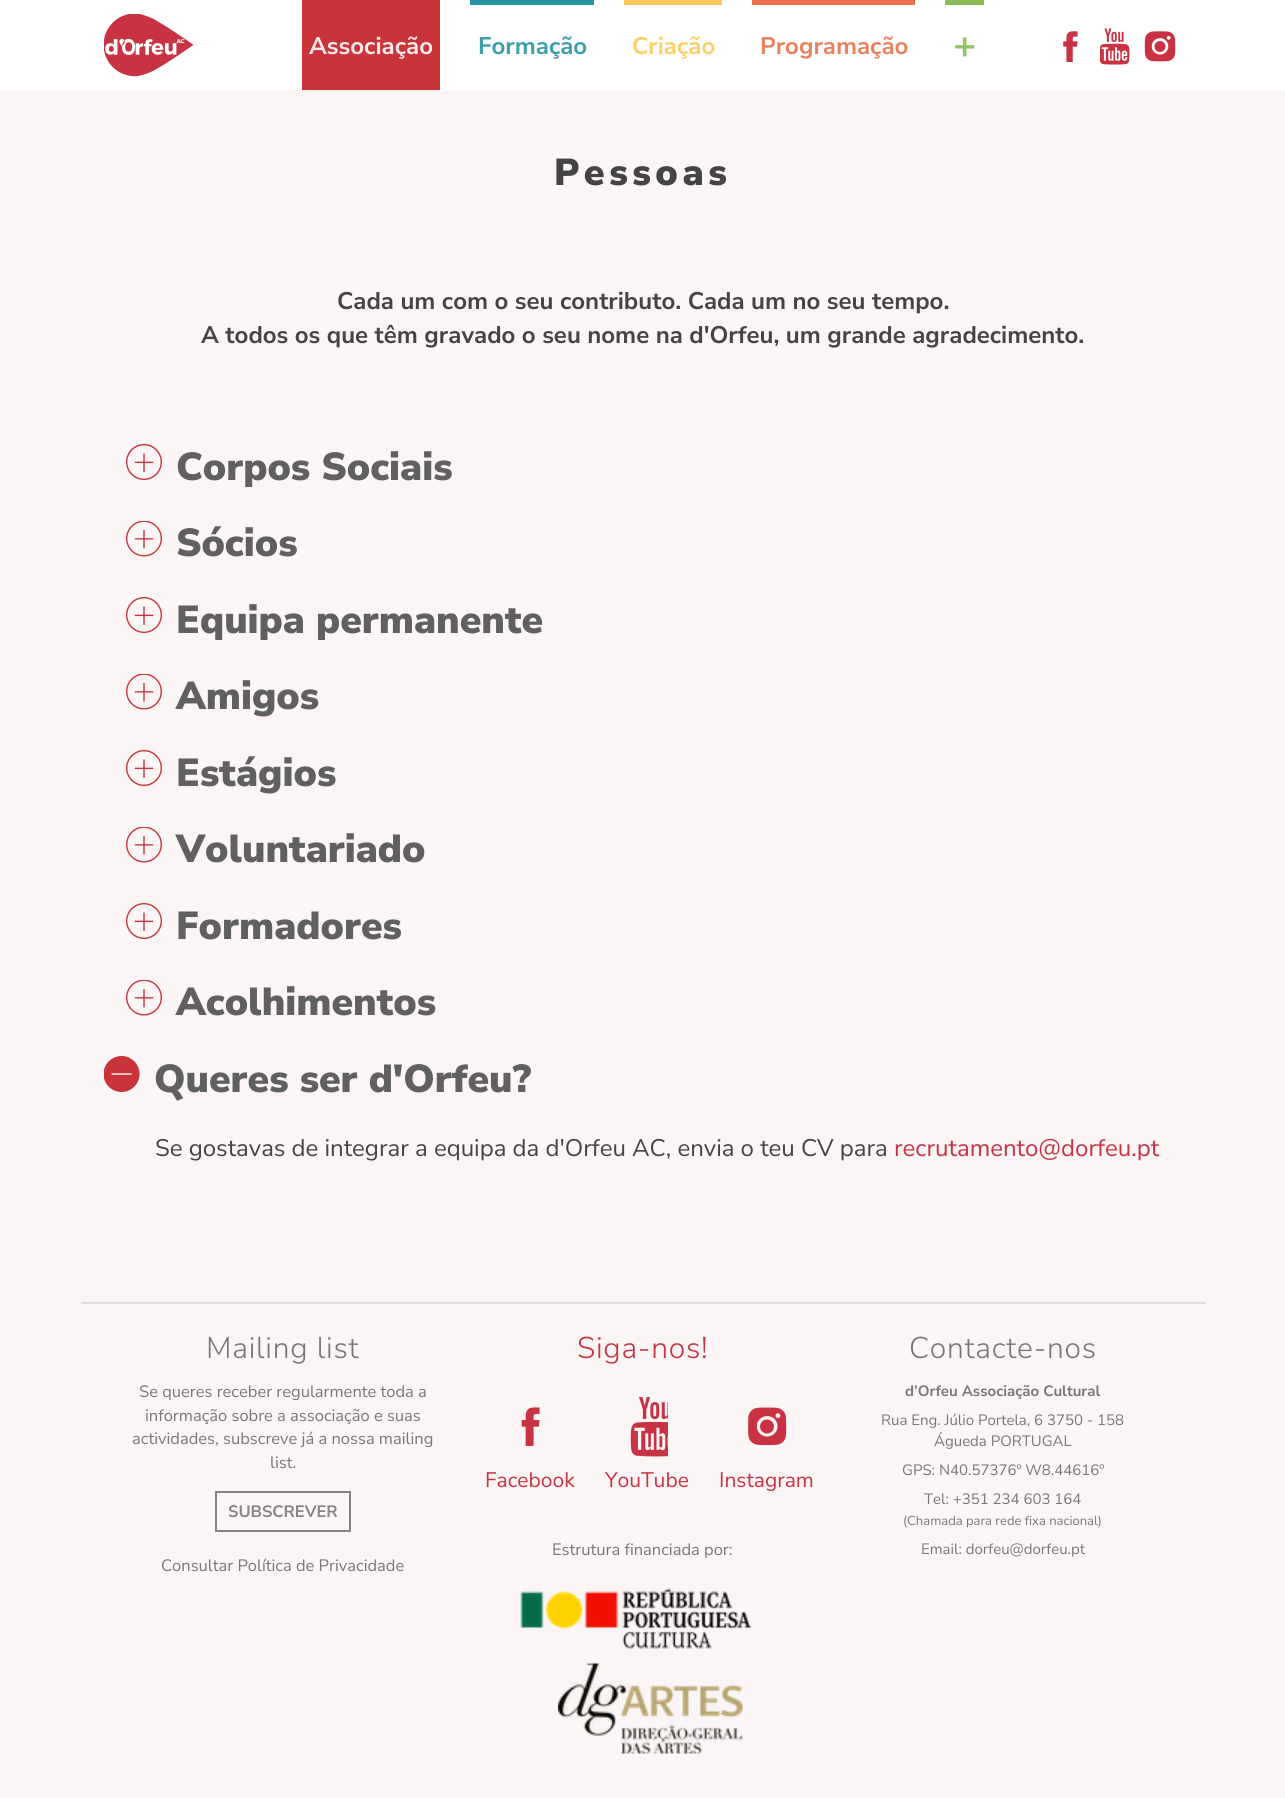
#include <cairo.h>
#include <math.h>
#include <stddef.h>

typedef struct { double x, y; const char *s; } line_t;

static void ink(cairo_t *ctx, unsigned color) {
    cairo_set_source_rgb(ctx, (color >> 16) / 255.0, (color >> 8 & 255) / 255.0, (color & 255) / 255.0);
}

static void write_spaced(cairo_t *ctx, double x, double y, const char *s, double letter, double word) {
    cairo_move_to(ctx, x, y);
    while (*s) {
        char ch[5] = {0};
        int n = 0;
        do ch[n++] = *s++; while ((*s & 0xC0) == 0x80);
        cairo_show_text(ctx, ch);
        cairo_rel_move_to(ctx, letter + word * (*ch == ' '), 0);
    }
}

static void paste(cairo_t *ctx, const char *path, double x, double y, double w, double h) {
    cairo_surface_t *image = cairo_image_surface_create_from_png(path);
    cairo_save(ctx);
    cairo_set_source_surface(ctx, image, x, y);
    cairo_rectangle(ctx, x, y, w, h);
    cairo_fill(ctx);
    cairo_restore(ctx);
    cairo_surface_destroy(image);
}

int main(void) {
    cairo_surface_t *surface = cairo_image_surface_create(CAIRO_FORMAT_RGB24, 1285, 1798);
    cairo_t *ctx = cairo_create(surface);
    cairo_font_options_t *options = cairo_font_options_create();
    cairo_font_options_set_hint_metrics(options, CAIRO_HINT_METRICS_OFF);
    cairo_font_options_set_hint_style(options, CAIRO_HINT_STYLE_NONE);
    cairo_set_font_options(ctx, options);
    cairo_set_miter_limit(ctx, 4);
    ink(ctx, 0xFCF5F5);
    cairo_paint(ctx);
    ink(ctx, 0xFFFFFF);
    cairo_rectangle(ctx, 0, 0, 1285, 90);
    cairo_fill(ctx);
    paste(ctx, "media/1.png", 104, 14, 90, 63);
    ink(ctx, 0xC83439);
    cairo_rectangle(ctx, 302, 0, 138, 90);
    cairo_fill(ctx);
    cairo_select_font_face(ctx, "Nunito Sans", CAIRO_FONT_SLANT_NORMAL, CAIRO_FONT_WEIGHT_BOLD);
    cairo_set_font_size(ctx, 24);
    ink(ctx, 0xFAEBEB);
    cairo_move_to(ctx, 309, 54);
    cairo_show_text(ctx, "Associação");
    ink(ctx, 0x2793A2);
    cairo_rectangle(ctx, 470, 0, 124, 5);
    cairo_fill(ctx);
    ink(ctx, 0x3D9EAB);
    cairo_move_to(ctx, 478, 54);
    cairo_show_text(ctx, "Formação");
    ink(ctx, 0xFFC857);
    cairo_rectangle(ctx, 624, 0, 98, 5);
    cairo_fill(ctx);
    ink(ctx, 0xFFCE68);
    cairo_move_to(ctx, 632, 54);
    cairo_show_text(ctx, "Criação");
    ink(ctx, 0xE9724C);
    cairo_rectangle(ctx, 752, 0, 163, 5);
    cairo_fill(ctx);
    ink(ctx, 0xEB805E);
    cairo_move_to(ctx, 760, 54);
    cairo_show_text(ctx, "Programação");
    ink(ctx, 0x89BC56);
    cairo_rectangle(ctx, 945, 0, 39, 5);
    cairo_fill(ctx);
    cairo_set_font_size(ctx, 39);
    ink(ctx, 0x95C367);
    cairo_move_to(ctx, 953, 58);
    cairo_show_text(ctx, "+");
    paste(ctx, "media/2.png", 1063, 31, 15, 31);
    paste(ctx, "media/3.png", 1100, 28, 30, 37);
    paste(ctx, "media/4.png", 1144, 31, 32, 31);
    cairo_select_font_face(ctx, "Nunito Sans Black", CAIRO_FONT_SLANT_NORMAL, CAIRO_FONT_WEIGHT_NORMAL);
    cairo_set_font_size(ctx, 37.5);
    ink(ctx, 0x444444);
    write_spaced(ctx, 554, 185, "Pessoas", 4.5, 0);
    cairo_select_font_face(ctx, "Nunito Sans", CAIRO_FONT_SLANT_NORMAL, CAIRO_FONT_WEIGHT_BOLD);
    cairo_set_font_size(ctx, 24);
    cairo_move_to(ctx, 337, 309);
    cairo_show_text(ctx, "Cada um com o seu contributo. Cada um no seu tempo.");
    cairo_move_to(ctx, 201, 343);
    cairo_show_text(ctx, "A todos os que têm gravado o seu nome na d'Orfeu, um grande agradecimento.");
    paste(ctx, "media/5.png", 126, 444, 36, 36);
    cairo_select_font_face(ctx, "Nunito Sans Black", CAIRO_FONT_SLANT_NORMAL, CAIRO_FONT_WEIGHT_NORMAL);
    cairo_set_font_size(ctx, 39);
    ink(ctx, 0x60605F);
    cairo_move_to(ctx, 176, 480);
    cairo_show_text(ctx, "Corpos Sociais");
    paste(ctx, "media/6.png", 126, 521, 36, 36);
    cairo_move_to(ctx, 176, 556);
    cairo_show_text(ctx, "Sócios");
    paste(ctx, "media/5.png", 126, 597, 36, 36);
    cairo_move_to(ctx, 176, 633);
    cairo_show_text(ctx, "Equipa permanente");
    paste(ctx, "media/6.png", 126, 674, 36, 36);
    cairo_move_to(ctx, 176, 709);
    cairo_show_text(ctx, "Amigos");
    paste(ctx, "media/5.png", 126, 750, 36, 36);
    cairo_move_to(ctx, 176, 786);
    cairo_show_text(ctx, "Estágios");
    paste(ctx, "media/6.png", 126, 827, 36, 36);
    cairo_move_to(ctx, 176, 862);
    cairo_show_text(ctx, "Voluntariado");
    paste(ctx, "media/5.png", 126, 903, 36, 36);
    cairo_move_to(ctx, 176, 939);
    cairo_show_text(ctx, "Formadores");
    paste(ctx, "media/6.png", 126, 980, 36, 36);
    cairo_move_to(ctx, 176, 1015);
    cairo_show_text(ctx, "Acolhimentos");
    cairo_save(ctx);
    cairo_rectangle(ctx, 104, 1056, 36, 36);
    cairo_clip(ctx);
    ink(ctx, 0xC83439);
    cairo_arc(ctx, 121.5, 1074, 18, 0, 2 * M_PI);
    cairo_fill(ctx);
    cairo_restore(ctx);
    cairo_new_path(ctx);
    cairo_move_to(ctx, 131, 1074);
    cairo_line_to(ctx, 112, 1074);
    ink(ctx, 0xFFFFFF);
    cairo_set_line_width(ctx, 1.4);
    cairo_set_line_cap(ctx, CAIRO_LINE_CAP_ROUND);
    cairo_set_line_join(ctx, CAIRO_LINE_JOIN_ROUND);
    cairo_stroke(ctx);
    ink(ctx, 0x60605F);
    cairo_move_to(ctx, 154, 1092);
    cairo_show_text(ctx, "Queres ser d'Orfeu?");
    cairo_select_font_face(ctx, "Nunito Sans", CAIRO_FONT_SLANT_NORMAL, CAIRO_FONT_WEIGHT_NORMAL);
    cairo_set_font_size(ctx, 24);
    ink(ctx, 0x444444);
    cairo_move_to(ctx, 155, 1156);
    cairo_show_text(ctx, "Se gostavas de integrar a equipa da d'Orfeu AC, envia o teu CV para");
    ink(ctx, 0xC93243);
    cairo_move_to(ctx, 894, 1156);
    cairo_show_text(ctx, "recrutamento@dorfeu.pt");
    ink(ctx, 0xDDDDDD);
    cairo_rectangle(ctx, 81, 1302, 1125, 2);
    cairo_fill(ctx);
    cairo_select_font_face(ctx, "Nunito Sans Light", CAIRO_FONT_SLANT_NORMAL, CAIRO_FONT_WEIGHT_NORMAL);
    cairo_set_font_size(ctx, 30);
    ink(ctx, 0x777777);
    write_spaced(ctx, 206, 1358, "Mailing list", 0.75, 0);
    cairo_select_font_face(ctx, "Nunito Sans", CAIRO_FONT_SLANT_NORMAL, CAIRO_FONT_WEIGHT_NORMAL);
    cairo_set_font_size(ctx, 16.5);
    {
        static const line_t items[] = {
            {139, 1397, "Se queres receber regularmente toda a"},
            {145, 1421, "informação sobre a associação e suas"},
            {132, 1444, "actividades, subscreve já a nossa mailing"},
            {270, 1468, "list."},
        };
        for (size_t i = 0; i < sizeof items / sizeof *items; i++) {
            cairo_move_to(ctx, items[i].x, items[i].y);
            cairo_show_text(ctx, items[i].s);
        }
    }
    cairo_rectangle(ctx, 216, 1492, 134, 39);
    ink(ctx, 0x848484);
    cairo_set_line_width(ctx, 2);
    cairo_set_line_cap(ctx, CAIRO_LINE_CAP_BUTT);
    cairo_set_line_join(ctx, CAIRO_LINE_JOIN_MITER);
    cairo_stroke(ctx);
    cairo_select_font_face(ctx, "Nunito Sans", CAIRO_FONT_SLANT_NORMAL, CAIRO_FONT_WEIGHT_BOLD);
    cairo_move_to(ctx, 228, 1517);
    cairo_show_text(ctx, "SUBSCREVER");
    cairo_select_font_face(ctx, "Nunito Sans", CAIRO_FONT_SLANT_NORMAL, CAIRO_FONT_WEIGHT_NORMAL);
    ink(ctx, 0x777777);
    cairo_move_to(ctx, 161, 1571);
    cairo_show_text(ctx, "Consultar Política de Privacidade");
    cairo_select_font_face(ctx, "Nunito Sans Light", CAIRO_FONT_SLANT_NORMAL, CAIRO_FONT_WEIGHT_NORMAL);
    cairo_set_font_size(ctx, 30);
    ink(ctx, 0xC93243);
    write_spaced(ctx, 577, 1358, "Siga-nos!", 0.75, 0);
    paste(ctx, "media/7.png", 521, 1407, 19, 39);
    cairo_select_font_face(ctx, "Nunito Sans", CAIRO_FONT_SLANT_NORMAL, CAIRO_FONT_WEIGHT_NORMAL);
    cairo_set_font_size(ctx, 21);
    cairo_move_to(ctx, 485, 1487);
    cairo_show_text(ctx, "Facebook");
    paste(ctx, "media/8.png", 630, 1397, 38, 60);
    cairo_move_to(ctx, 605, 1487);
    cairo_show_text(ctx, "YouTube");
    paste(ctx, "media/9.png", 748, 1407, 39, 39);
    cairo_move_to(ctx, 719, 1487);
    cairo_show_text(ctx, "Instagram");
    cairo_set_font_size(ctx, 16.5);
    ink(ctx, 0x777777);
    cairo_move_to(ctx, 552, 1555);
    cairo_show_text(ctx, "Estrutura financiada por:");
    paste(ctx, "media/10.png", 520, 1588, 232, 61);
    paste(ctx, "media/11.png", 558, 1663, 185, 91);
    cairo_select_font_face(ctx, "Nunito Sans Light", CAIRO_FONT_SLANT_NORMAL, CAIRO_FONT_WEIGHT_NORMAL);
    cairo_set_font_size(ctx, 30);
    write_spaced(ctx, 909, 1358, "Contacte-nos", 0.75, 0);
    cairo_select_font_face(ctx, "Nunito Sans", CAIRO_FONT_SLANT_NORMAL, CAIRO_FONT_WEIGHT_BOLD);
    cairo_set_font_size(ctx, 15);
    cairo_move_to(ctx, 905, 1396);
    cairo_show_text(ctx, "d’Orfeu Associação Cultural");
    cairo_select_font_face(ctx, "Nunito Sans", CAIRO_FONT_SLANT_NORMAL, CAIRO_FONT_WEIGHT_NORMAL);
    {
        static const line_t items[] = {
            {881, 1425, "Rua Eng. Júlio Portela, 6 3750 - 158"},
            {934, 1446, "Águeda PORTUGAL"},
            {902, 1475, "GPS: N40.57376º W8.44616º"},
            {924, 1504, "Tel: +351 234 603 164"},
        };
        for (size_t i = 0; i < sizeof items / sizeof *items; i++) {
            cairo_move_to(ctx, items[i].x, items[i].y);
            cairo_show_text(ctx, items[i].s);
        }
    }
    cairo_set_font_size(ctx, 13);
    cairo_move_to(ctx, 903, 1525);
    cairo_show_text(ctx, "(Chamada para rede fixa nacional)");
    cairo_set_font_size(ctx, 15);
    cairo_move_to(ctx, 921, 1554);
    cairo_show_text(ctx, "Email: dorfeu@dorfeu.pt");
    cairo_surface_write_to_png(surface, "image.png");
    cairo_font_options_destroy(options);
    cairo_destroy(ctx);
    cairo_surface_destroy(surface);
    return 0;
}
